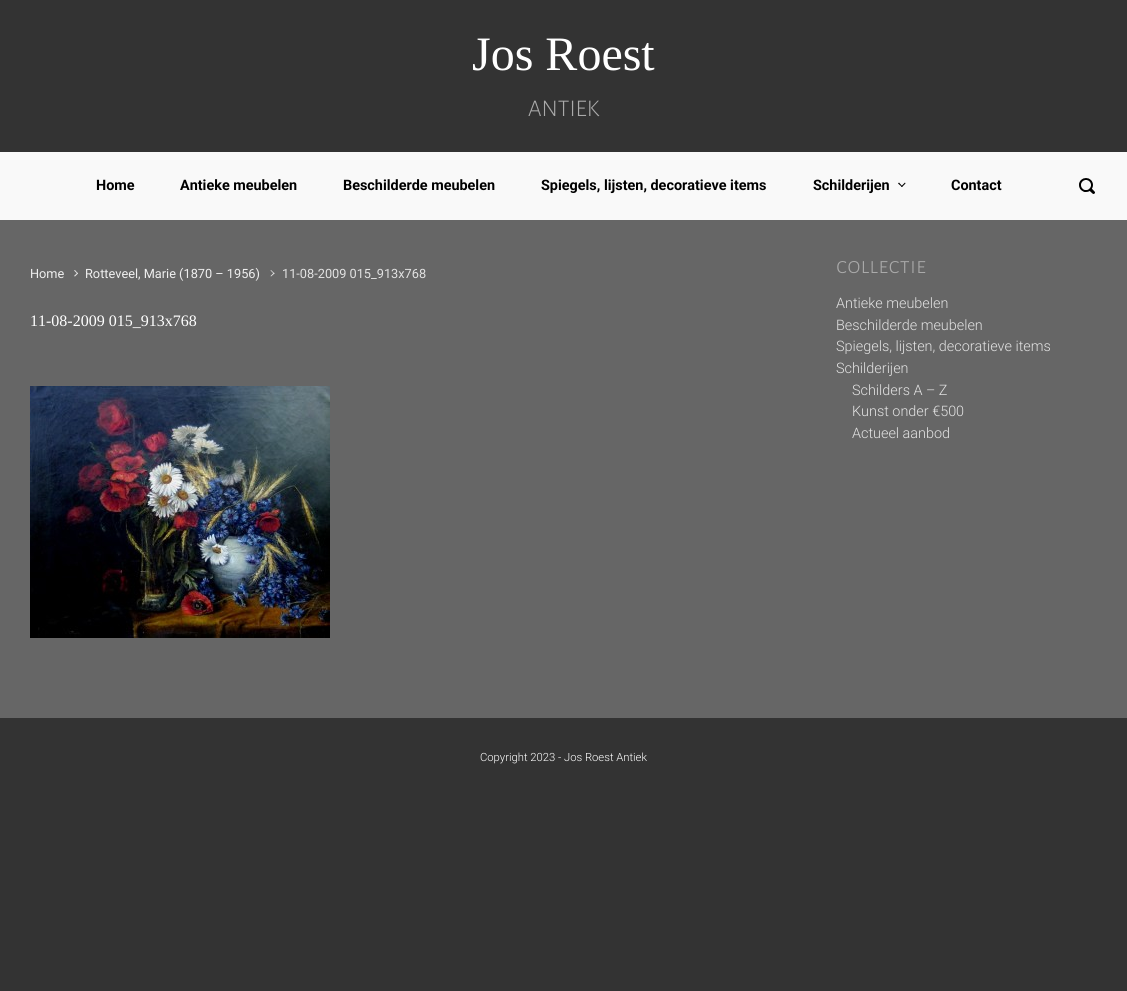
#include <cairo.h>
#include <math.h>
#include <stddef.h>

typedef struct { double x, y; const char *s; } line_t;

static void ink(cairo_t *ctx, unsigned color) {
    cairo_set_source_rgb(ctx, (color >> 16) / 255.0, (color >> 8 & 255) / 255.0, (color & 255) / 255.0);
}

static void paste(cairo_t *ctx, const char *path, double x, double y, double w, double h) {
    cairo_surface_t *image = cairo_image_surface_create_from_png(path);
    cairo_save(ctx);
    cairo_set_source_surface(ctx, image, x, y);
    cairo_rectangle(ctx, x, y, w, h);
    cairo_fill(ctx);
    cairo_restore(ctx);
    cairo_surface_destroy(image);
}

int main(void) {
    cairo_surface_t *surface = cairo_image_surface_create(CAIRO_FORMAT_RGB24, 1127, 991);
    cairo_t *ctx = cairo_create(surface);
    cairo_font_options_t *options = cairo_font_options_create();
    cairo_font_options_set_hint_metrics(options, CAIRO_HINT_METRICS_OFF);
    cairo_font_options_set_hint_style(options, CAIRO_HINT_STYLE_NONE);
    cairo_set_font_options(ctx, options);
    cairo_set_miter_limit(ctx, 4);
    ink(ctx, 0x333333);
    cairo_paint(ctx);
    ink(ctx, 0xF9F9F9);
    cairo_rectangle(ctx, 0, 152, 1127, 68);
    cairo_fill(ctx);
    cairo_select_font_face(ctx, "Liberation Serif", CAIRO_FONT_SLANT_NORMAL, CAIRO_FONT_WEIGHT_NORMAL);
    cairo_set_font_size(ctx, 48);
    ink(ctx, 0xFFFFFF);
    cairo_move_to(ctx, 472, 70);
    cairo_show_text(ctx, "Jos Roest");
    cairo_select_font_face(ctx, "Alegreya Sans SC Light", CAIRO_FONT_SLANT_NORMAL, CAIRO_FONT_WEIGHT_NORMAL);
    cairo_set_font_size(ctx, 24);
    ink(ctx, 0xAAAAAA);
    cairo_move_to(ctx, 528, 116);
    cairo_show_text(ctx, "ANTIEK");
    cairo_select_font_face(ctx, "Roboto", CAIRO_FONT_SLANT_NORMAL, CAIRO_FONT_WEIGHT_BOLD);
    cairo_set_font_size(ctx, 14.4);
    ink(ctx, 0x000000);
    {
        static const line_t items[] = {
            {96, 190, "Home"},
            {180, 190, "Antieke meubelen"},
            {343, 190, "Beschilderde meubelen"},
            {541, 190, "Spiegels, lijsten, decoratieve items"},
            {813, 190, "Schilderijen"},
        };
        for (size_t i = 0; i < sizeof items / sizeof *items; i++) {
            cairo_move_to(ctx, items[i].x, items[i].y);
            cairo_show_text(ctx, items[i].s);
        }
    }
    cairo_new_path(ctx);
    cairo_move_to(ctx, 905, 182.5);
    cairo_line_to(ctx, 905.5, 183.5);
    cairo_line_to(ctx, 902, 187);
    cairo_line_to(ctx, 901, 186.5);
    cairo_close_path(ctx);
    cairo_fill(ctx);
    cairo_new_path(ctx);
    cairo_move_to(ctx, 899, 182.5);
    cairo_line_to(ctx, 902.5, 186.5);
    cairo_line_to(ctx, 902, 187);
    cairo_line_to(ctx, 898, 183.5);
    cairo_close_path(ctx);
    cairo_fill(ctx);
    cairo_move_to(ctx, 951, 190);
    cairo_show_text(ctx, "Contact");
    paste(ctx, "media/1.png", 1079, 178, 16, 16);
    ink(ctx, 0x666666);
    cairo_rectangle(ctx, 0, 220, 1127, 498);
    cairo_fill(ctx);
    cairo_select_font_face(ctx, "Roboto", CAIRO_FONT_SLANT_NORMAL, CAIRO_FONT_WEIGHT_NORMAL);
    cairo_set_font_size(ctx, 12.75);
    ink(ctx, 0xEFEFEF);
    cairo_move_to(ctx, 30, 278);
    cairo_show_text(ctx, "Home");
    ink(ctx, 0xE2E2E2);
    cairo_new_path(ctx);
    cairo_move_to(ctx, 74, 270.5);
    cairo_line_to(ctx, 75, 270);
    cairo_line_to(ctx, 78, 273.5);
    cairo_line_to(ctx, 77.5, 274);
    cairo_close_path(ctx);
    cairo_fill(ctx);
    cairo_new_path(ctx);
    cairo_move_to(ctx, 74, 276);
    cairo_line_to(ctx, 77.5, 272.5);
    cairo_line_to(ctx, 78, 273.5);
    cairo_line_to(ctx, 75, 276.5);
    cairo_close_path(ctx);
    cairo_fill(ctx);
    ink(ctx, 0xEFEFEF);
    cairo_move_to(ctx, 85, 278);
    cairo_show_text(ctx, "Rotteveel, Marie (1870 – 1956)");
    ink(ctx, 0xE2E2E2);
    cairo_new_path(ctx);
    cairo_move_to(ctx, 270.5, 270.5);
    cairo_line_to(ctx, 271, 270);
    cairo_line_to(ctx, 274.5, 273.5);
    cairo_line_to(ctx, 274, 274);
    cairo_close_path(ctx);
    cairo_fill(ctx);
    cairo_new_path(ctx);
    cairo_move_to(ctx, 270.5, 276);
    cairo_line_to(ctx, 274, 272.5);
    cairo_line_to(ctx, 274.5, 273.5);
    cairo_line_to(ctx, 271, 276.5);
    cairo_close_path(ctx);
    cairo_fill(ctx);
    cairo_move_to(ctx, 282, 278);
    cairo_show_text(ctx, "11-08-2009 015_913x768");
    cairo_select_font_face(ctx, "Liberation Serif", CAIRO_FONT_SLANT_NORMAL, CAIRO_FONT_WEIGHT_NORMAL);
    cairo_set_font_size(ctx, 16);
    ink(ctx, 0xFFFFFF);
    cairo_move_to(ctx, 30, 326);
    cairo_show_text(ctx, "11-08-2009 015_913x768");
    paste(ctx, "media/2.png", 30, 386, 300, 252);
    cairo_select_font_face(ctx, "Alegreya Sans SC Light", CAIRO_FONT_SLANT_NORMAL, CAIRO_FONT_WEIGHT_NORMAL);
    cairo_set_font_size(ctx, 24);
    ink(ctx, 0xAAAAAA);
    cairo_move_to(ctx, 836, 273);
    cairo_show_text(ctx, "collectie");
    cairo_select_font_face(ctx, "Roboto Light", CAIRO_FONT_SLANT_NORMAL, CAIRO_FONT_WEIGHT_NORMAL);
    cairo_set_font_size(ctx, 14.4);
    ink(ctx, 0xE2E2E2);
    {
        static const line_t items[] = {
            {836, 308, "Antieke meubelen"},
            {836, 330, "Beschilderde meubelen"},
            {836, 351, "Spiegels, lijsten, decoratieve items"},
            {836, 373, "Schilderijen"},
            {852, 395, "Schilders A – Z"},
            {852, 416, "Kunst onder €500"},
            {852, 438, "Actueel aanbod"},
        };
        for (size_t i = 0; i < sizeof items / sizeof *items; i++) {
            cairo_move_to(ctx, items[i].x, items[i].y);
            cairo_show_text(ctx, items[i].s);
        }
    }
    cairo_set_font_size(ctx, 11.25);
    ink(ctx, 0xFFFFFF);
    cairo_move_to(ctx, 480, 761);
    cairo_show_text(ctx, "Copyright 2023 - Jos Roest Antiek");
    cairo_surface_write_to_png(surface, "image.png");
    cairo_font_options_destroy(options);
    cairo_destroy(ctx);
    cairo_surface_destroy(surface);
    return 0;
}
